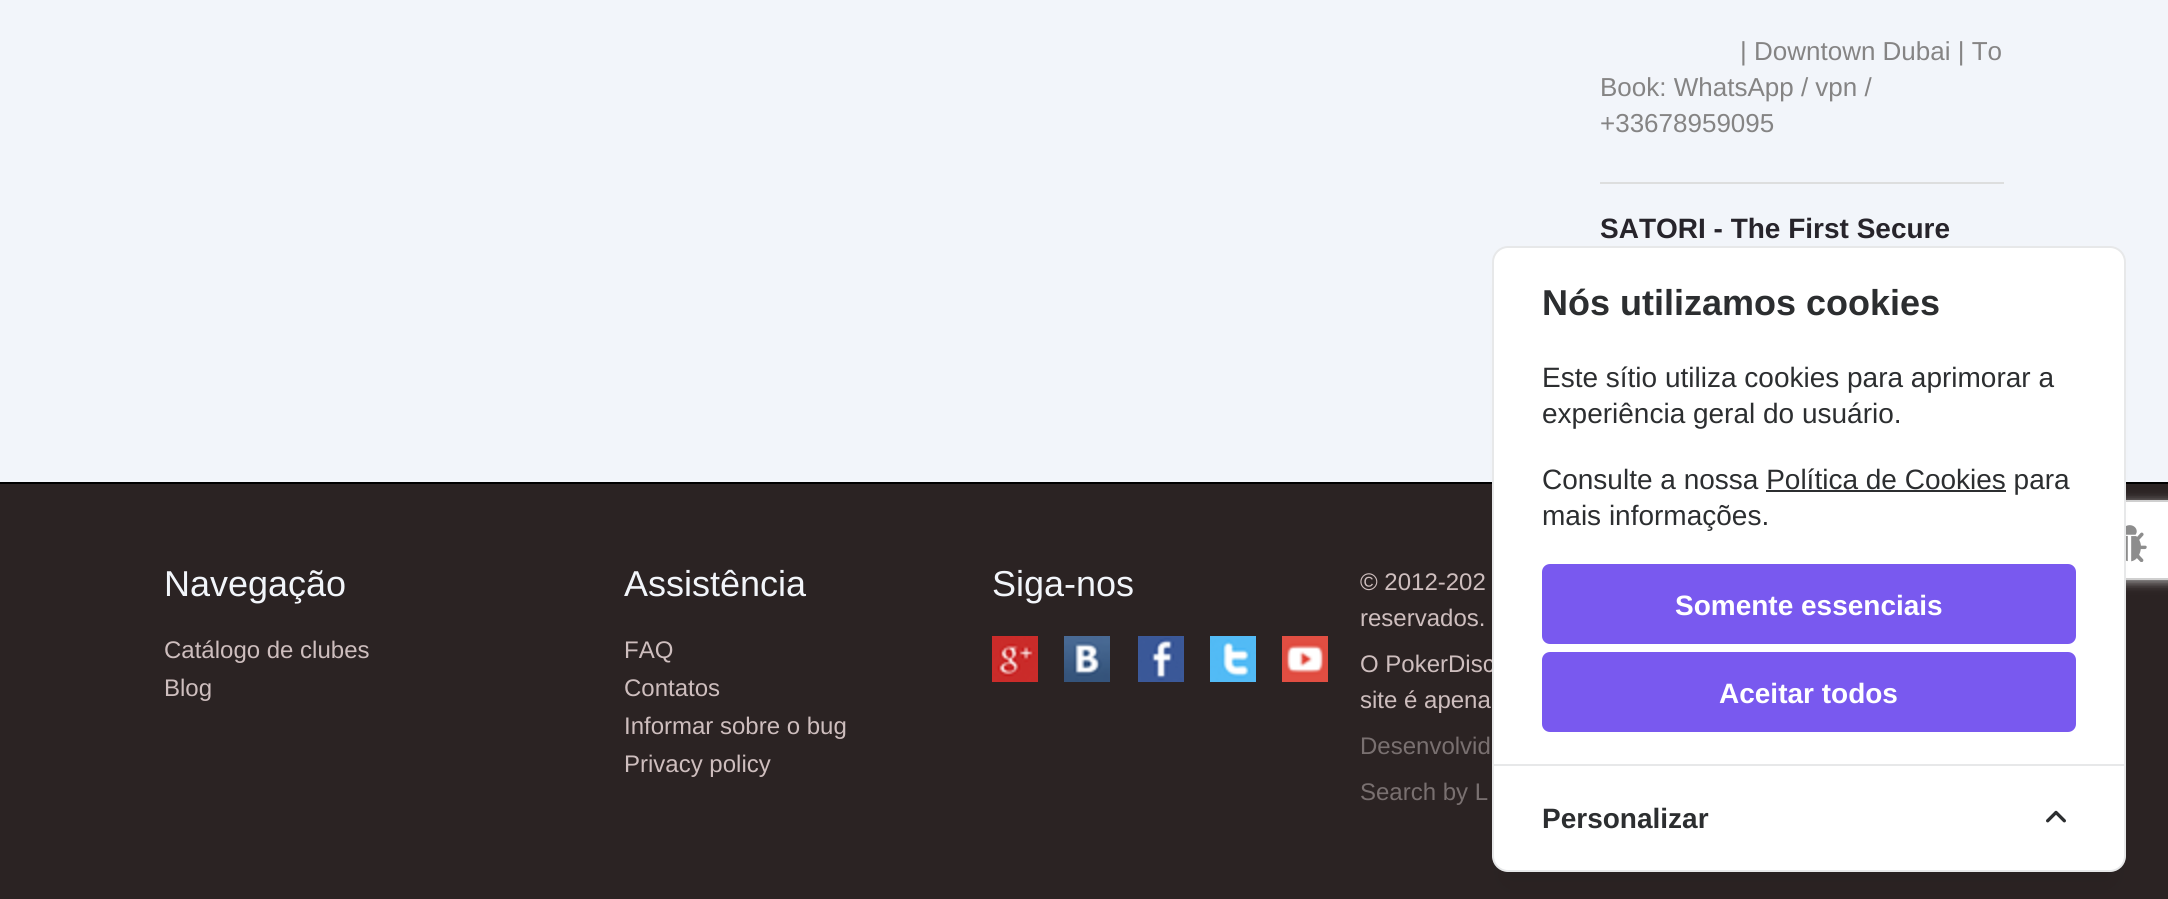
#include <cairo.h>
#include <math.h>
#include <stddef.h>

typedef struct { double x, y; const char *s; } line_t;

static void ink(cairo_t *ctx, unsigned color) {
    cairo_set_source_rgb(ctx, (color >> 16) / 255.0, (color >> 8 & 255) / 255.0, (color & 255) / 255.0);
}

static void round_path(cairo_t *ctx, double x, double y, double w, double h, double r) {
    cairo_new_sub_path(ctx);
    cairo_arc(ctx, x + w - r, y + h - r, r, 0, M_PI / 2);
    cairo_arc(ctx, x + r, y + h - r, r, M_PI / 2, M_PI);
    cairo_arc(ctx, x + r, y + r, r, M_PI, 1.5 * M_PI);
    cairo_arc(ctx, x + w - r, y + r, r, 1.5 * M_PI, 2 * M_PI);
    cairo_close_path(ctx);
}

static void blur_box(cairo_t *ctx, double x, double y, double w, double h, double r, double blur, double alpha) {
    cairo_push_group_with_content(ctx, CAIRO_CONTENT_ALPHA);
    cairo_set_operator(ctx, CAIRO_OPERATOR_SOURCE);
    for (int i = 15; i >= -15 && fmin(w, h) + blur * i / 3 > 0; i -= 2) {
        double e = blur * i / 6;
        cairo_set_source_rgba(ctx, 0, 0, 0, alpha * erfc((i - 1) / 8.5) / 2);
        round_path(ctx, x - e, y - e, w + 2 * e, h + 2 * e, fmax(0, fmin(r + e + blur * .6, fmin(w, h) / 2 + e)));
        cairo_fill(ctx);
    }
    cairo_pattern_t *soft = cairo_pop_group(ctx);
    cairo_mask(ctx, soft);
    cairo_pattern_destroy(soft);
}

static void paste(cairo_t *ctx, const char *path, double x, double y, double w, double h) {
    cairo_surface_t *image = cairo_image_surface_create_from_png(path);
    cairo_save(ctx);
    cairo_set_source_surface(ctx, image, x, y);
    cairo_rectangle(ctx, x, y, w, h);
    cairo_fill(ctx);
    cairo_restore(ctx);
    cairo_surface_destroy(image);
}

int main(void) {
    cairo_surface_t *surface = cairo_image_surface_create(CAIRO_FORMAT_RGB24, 2168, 899);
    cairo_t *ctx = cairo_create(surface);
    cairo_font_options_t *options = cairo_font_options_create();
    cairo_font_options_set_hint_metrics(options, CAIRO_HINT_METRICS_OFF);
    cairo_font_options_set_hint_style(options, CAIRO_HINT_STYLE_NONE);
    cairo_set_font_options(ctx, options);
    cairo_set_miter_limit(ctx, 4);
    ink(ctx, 0xF2F5FA);
    cairo_paint(ctx);
    ink(ctx, 0xDDDEDE);
    cairo_rectangle(ctx, 1600, 182, 404, 2);
    cairo_fill(ctx);
    cairo_select_font_face(ctx, "Liberation Sans", CAIRO_FONT_SLANT_NORMAL, CAIRO_FONT_WEIGHT_NORMAL);
    cairo_set_font_size(ctx, 26);
    ink(ctx, 0x858484);
    {
        static const line_t items[] = {
            {1740, 60, "| Downtown Dubai | To"},
            {1600, 96, "Book: WhatsApp / vpn /"},
            {1600, 132, "+33678959095"},
        };
        for (size_t i = 0; i < sizeof items / sizeof *items; i++) {
            cairo_move_to(ctx, items[i].x, items[i].y);
            cairo_show_text(ctx, items[i].s);
        }
    }
    cairo_select_font_face(ctx, "Liberation Sans", CAIRO_FONT_SLANT_NORMAL, CAIRO_FONT_WEIGHT_BOLD);
    cairo_set_font_size(ctx, 28);
    ink(ctx, 0x27242B);
    cairo_move_to(ctx, 1600, 238);
    cairo_show_text(ctx, "SATORI - The First Secure");
    ink(ctx, 0x2B2323);
    cairo_rectangle(ctx, 0, 484, 2168, 415);
    cairo_fill(ctx);
    ink(ctx, 0x000000);
    cairo_rectangle(ctx, 0, 482, 2168, 2);
    cairo_fill(ctx);
    cairo_select_font_face(ctx, "Liberation Sans", CAIRO_FONT_SLANT_NORMAL, CAIRO_FONT_WEIGHT_NORMAL);
    cairo_set_font_size(ctx, 36);
    ink(ctx, 0xF2F5FA);
    cairo_move_to(ctx, 164, 596);
    cairo_show_text(ctx, "Navegação");
    cairo_set_font_size(ctx, 24);
    ink(ctx, 0xCEBEBE);
    cairo_move_to(ctx, 164, 658);
    cairo_show_text(ctx, "Catálogo de clubes");
    cairo_move_to(ctx, 164, 696);
    cairo_show_text(ctx, "Blog");
    cairo_set_font_size(ctx, 36);
    ink(ctx, 0xF2F5FA);
    cairo_move_to(ctx, 624, 596);
    cairo_show_text(ctx, "Assistência");
    cairo_set_font_size(ctx, 24);
    ink(ctx, 0xCEBEBE);
    {
        static const line_t items[] = {
            {624, 658, "FAQ"},
            {624, 696, "Contatos"},
            {624, 734, "Informar sobre o bug"},
            {624, 772, "Privacy policy"},
        };
        for (size_t i = 0; i < sizeof items / sizeof *items; i++) {
            cairo_move_to(ctx, items[i].x, items[i].y);
            cairo_show_text(ctx, items[i].s);
        }
    }
    cairo_set_font_size(ctx, 36);
    ink(ctx, 0xF2F5FA);
    cairo_move_to(ctx, 992, 596);
    cairo_show_text(ctx, "Siga-nos");
    paste(ctx, "media/1.png", 992, 636, 46, 46);
    paste(ctx, "media/2.png", 1064, 636, 46, 46);
    paste(ctx, "media/3.png", 1138, 636, 46, 46);
    paste(ctx, "media/4.png", 1210, 636, 46, 46);
    paste(ctx, "media/5.png", 1282, 636, 46, 46);
    cairo_set_font_size(ctx, 24);
    ink(ctx, 0xCEBEBE);
    {
        static const line_t items[] = {
            {1360, 590, "© 2012-202"},
            {1360, 626, "reservados."},
            {1360, 672, "O PokerDisc"},
            {1360, 708, "site é apena"},
        };
        for (size_t i = 0; i < sizeof items / sizeof *items; i++) {
            cairo_move_to(ctx, items[i].x, items[i].y);
            cairo_show_text(ctx, items[i].s);
        }
    }
    ink(ctx, 0x797070);
    cairo_move_to(ctx, 1360, 754);
    cairo_show_text(ctx, "Desenvolvid");
    cairo_move_to(ctx, 1360, 800);
    cairo_show_text(ctx, "Search by L");
    ink(ctx, 0xAAAAAA);
    blur_box(ctx, 2090, 502, 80, 80, 0, 5, 1);
    cairo_rectangle(ctx, 2089, 501, 78, 78);
    ink(ctx, 0xCFCFCF);
    cairo_stroke(ctx);
    ink(ctx, 0xFFFFFF);
    cairo_rectangle(ctx, 2126, 502, 42, 76);
    cairo_fill(ctx);
    paste(ctx, "media/7.png", 2126, 525, 21, 37);
    ink(ctx, 0x000000);
    blur_box(ctx, 1508, 286, 602, 594, 0, 12, 0.08);
    ink(ctx, 0xFFFFFF);
    round_path(ctx, 1493, 247, 632, 624, 15);
    cairo_fill_preserve(ctx);
    ink(ctx, 0xE7E8E9);
    cairo_stroke(ctx);
    cairo_select_font_face(ctx, "Liberation Sans", CAIRO_FONT_SLANT_NORMAL, CAIRO_FONT_WEIGHT_BOLD);
    cairo_set_font_size(ctx, 36);
    ink(ctx, 0x2C2E30);
    cairo_move_to(ctx, 1542, 315);
    cairo_show_text(ctx, "Nós utilizamos cookies");
    cairo_select_font_face(ctx, "Liberation Sans", CAIRO_FONT_SLANT_NORMAL, CAIRO_FONT_WEIGHT_NORMAL);
    cairo_set_font_size(ctx, 28);
    {
        static const line_t items[] = {
            {1542, 387, "Este sítio utiliza cookies para aprimorar a"},
            {1542, 423, "experiência geral do usuário."},
            {1542, 489, "Consulte a nossa Política de Cookies para"},
        };
        for (size_t i = 0; i < sizeof items / sizeof *items; i++) {
            cairo_move_to(ctx, items[i].x, items[i].y);
            cairo_show_text(ctx, items[i].s);
        }
    }
    cairo_rectangle(ctx, 1766, 490, 240, 2);
    cairo_fill(ctx);
    cairo_move_to(ctx, 1542, 525);
    cairo_show_text(ctx, "mais informações.");
    ink(ctx, 0x7959EF);
    round_path(ctx, 1543, 565, 532, 78, 7);
    cairo_fill_preserve(ctx);
    cairo_stroke(ctx);
    cairo_select_font_face(ctx, "Liberation Sans", CAIRO_FONT_SLANT_NORMAL, CAIRO_FONT_WEIGHT_BOLD);
    ink(ctx, 0xFFFFFF);
    cairo_move_to(ctx, 1675, 615);
    cairo_show_text(ctx, "Somente essenciais");
    ink(ctx, 0x7959EF);
    round_path(ctx, 1543, 653, 532, 78, 7);
    cairo_fill_preserve(ctx);
    cairo_stroke(ctx);
    ink(ctx, 0xFFFFFF);
    cairo_move_to(ctx, 1719, 703);
    cairo_show_text(ctx, "Aceitar todos");
    ink(ctx, 0xE7E8E9);
    cairo_rectangle(ctx, 1494, 764, 630, 2);
    cairo_fill(ctx);
    ink(ctx, 0x2C2E30);
    cairo_move_to(ctx, 1542, 828);
    cairo_show_text(ctx, "Personalizar");
    paste(ctx, "media/6.png", 2046, 810, 20, 13);
    cairo_surface_write_to_png(surface, "image.png");
    cairo_font_options_destroy(options);
    cairo_destroy(ctx);
    cairo_surface_destroy(surface);
    return 0;
}
